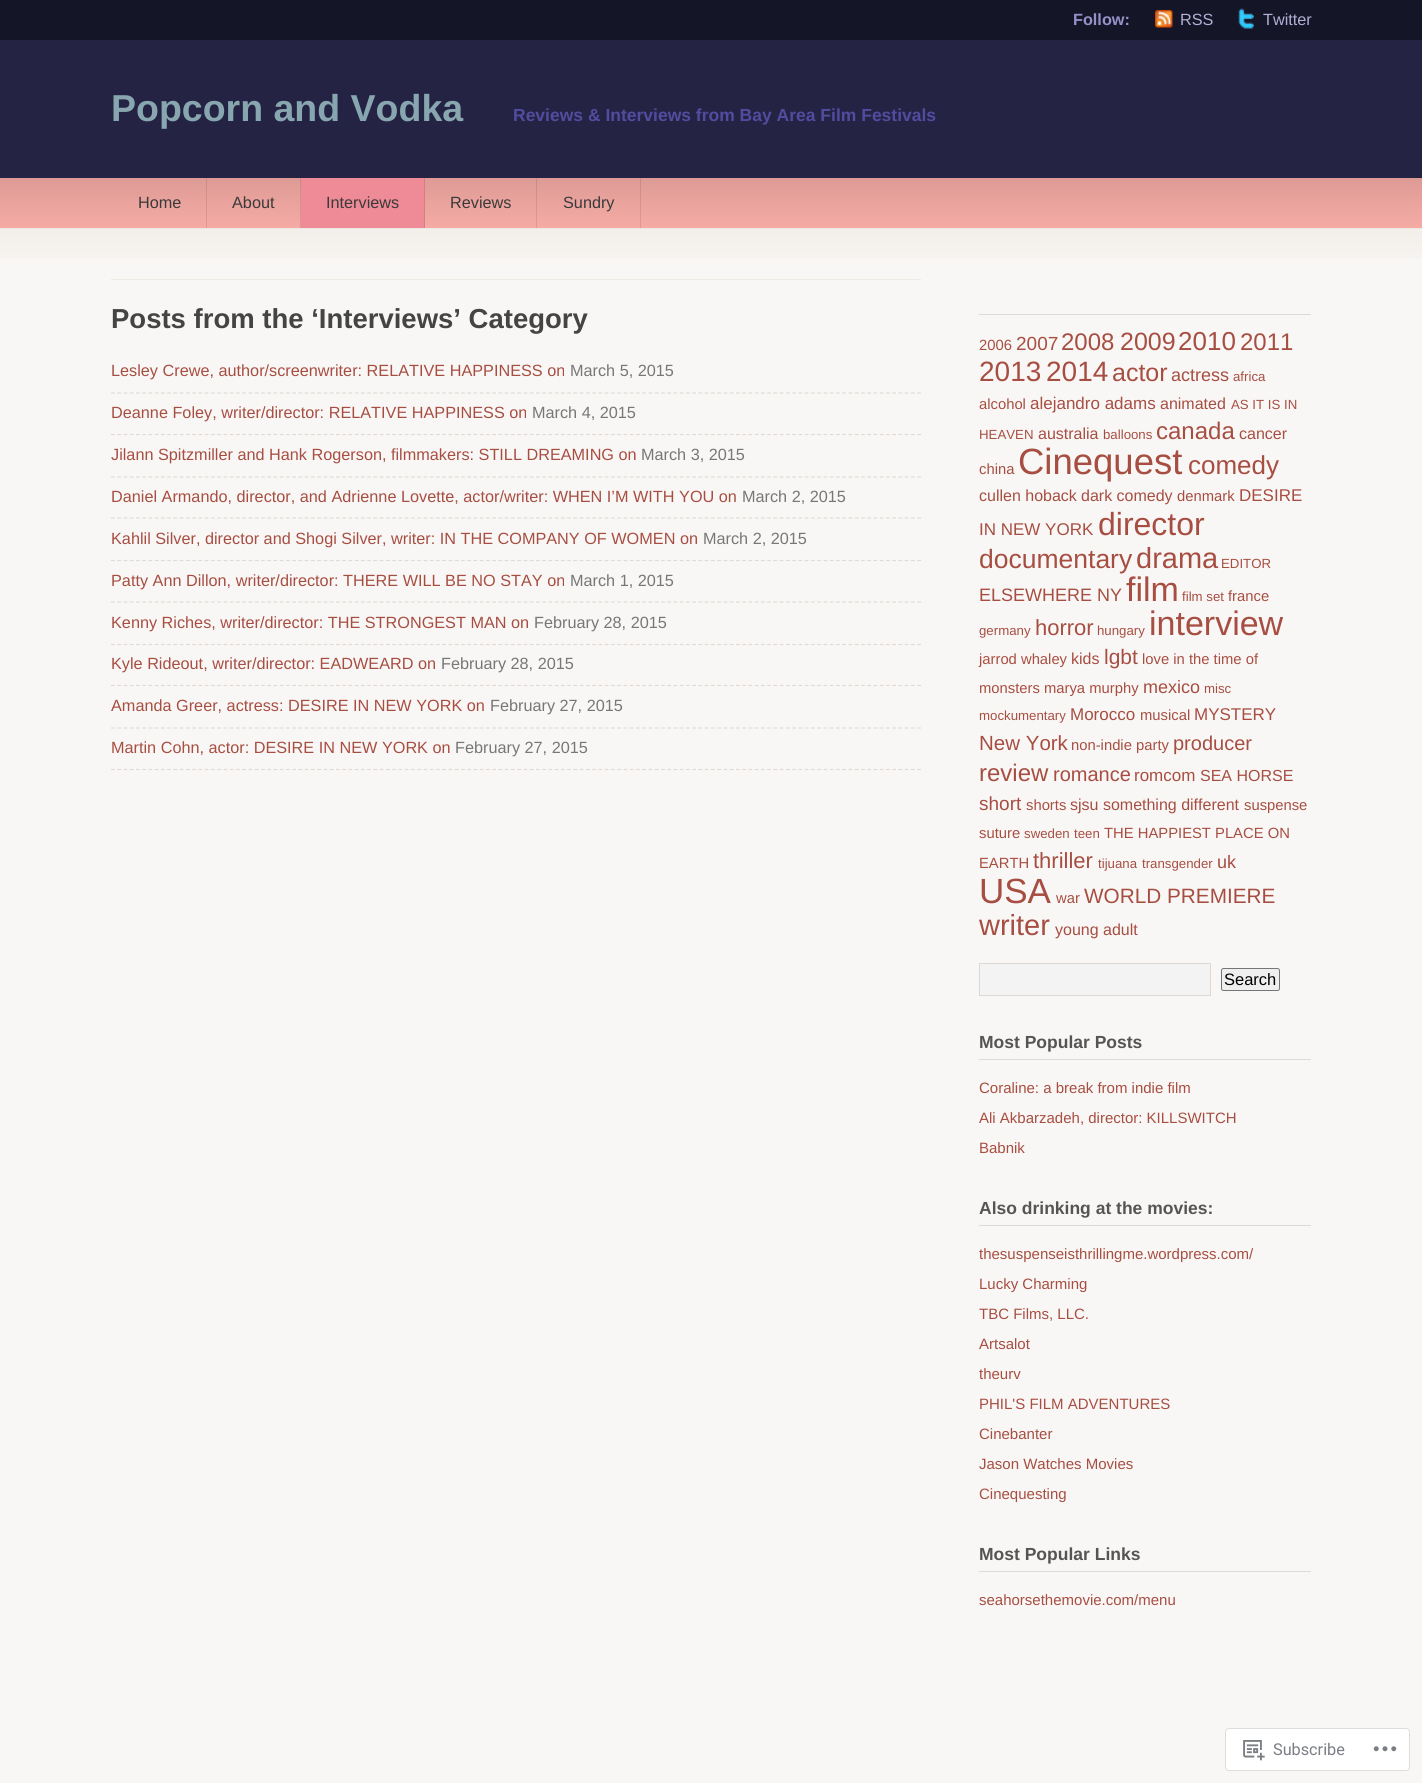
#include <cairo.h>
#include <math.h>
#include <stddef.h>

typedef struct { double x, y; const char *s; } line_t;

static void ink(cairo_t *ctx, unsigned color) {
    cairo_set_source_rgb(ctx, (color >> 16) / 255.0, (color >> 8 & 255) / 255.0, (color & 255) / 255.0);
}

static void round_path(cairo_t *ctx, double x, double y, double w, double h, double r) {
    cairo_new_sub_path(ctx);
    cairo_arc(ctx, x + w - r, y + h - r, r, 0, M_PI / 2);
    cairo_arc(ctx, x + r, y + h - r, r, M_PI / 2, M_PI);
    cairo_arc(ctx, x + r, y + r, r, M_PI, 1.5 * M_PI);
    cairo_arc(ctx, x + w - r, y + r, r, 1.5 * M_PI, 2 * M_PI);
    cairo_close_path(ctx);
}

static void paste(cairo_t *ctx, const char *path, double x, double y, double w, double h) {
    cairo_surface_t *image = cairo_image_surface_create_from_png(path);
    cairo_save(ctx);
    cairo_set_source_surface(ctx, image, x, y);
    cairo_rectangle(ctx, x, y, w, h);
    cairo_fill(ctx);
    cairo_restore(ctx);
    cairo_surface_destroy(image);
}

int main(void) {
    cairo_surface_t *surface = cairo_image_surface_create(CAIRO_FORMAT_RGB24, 1422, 1783);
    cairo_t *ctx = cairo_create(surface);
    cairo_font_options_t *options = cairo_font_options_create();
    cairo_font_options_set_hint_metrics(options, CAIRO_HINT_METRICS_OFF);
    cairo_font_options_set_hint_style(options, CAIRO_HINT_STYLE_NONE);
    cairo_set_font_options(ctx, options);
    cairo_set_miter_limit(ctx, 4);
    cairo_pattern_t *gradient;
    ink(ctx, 0xF9F7F5);
    cairo_paint(ctx);
    ink(ctx, 0x242343);
    cairo_rectangle(ctx, 0, 40, 1422, 138);
    cairo_fill(ctx);
    ink(ctx, 0x151528);
    cairo_rectangle(ctx, 0, 0, 1422, 40);
    cairo_fill(ctx);
    cairo_select_font_face(ctx, "Liberation Sans", CAIRO_FONT_SLANT_NORMAL, CAIRO_FONT_WEIGHT_BOLD);
    cairo_set_font_size(ctx, 16.25);
    ink(ctx, 0x9891C9);
    cairo_move_to(ctx, 1073, 25);
    cairo_show_text(ctx, "Follow:");
    paste(ctx, "media/1.png", 1155, 10, 18, 18);
    cairo_select_font_face(ctx, "Liberation Sans", CAIRO_FONT_SLANT_NORMAL, CAIRO_FONT_WEIGHT_NORMAL);
    ink(ctx, 0xB3AED4);
    cairo_move_to(ctx, 1180, 25);
    cairo_show_text(ctx, "RSS");
    paste(ctx, "media/2.png", 1238, 8, 16, 21);
    cairo_move_to(ctx, 1263, 25);
    cairo_show_text(ctx, "Twitter");
    cairo_select_font_face(ctx, "Liberation Sans", CAIRO_FONT_SLANT_NORMAL, CAIRO_FONT_WEIGHT_BOLD);
    cairo_set_font_size(ctx, 37.5);
    ink(ctx, 0x88A6B0);
    cairo_move_to(ctx, 111, 121);
    cairo_show_text(ctx, "Popcorn and Vodka");
    cairo_set_font_size(ctx, 17.5);
    ink(ctx, 0x534B9F);
    cairo_move_to(ctx, 513, 121);
    cairo_show_text(ctx, "Reviews & Interviews from Bay Area Film Festivals");
    gradient = cairo_pattern_create_linear(711, 177, 711, 228);
    cairo_pattern_add_color_stop_rgba(gradient, 0, 0.867, 0.604, 0.584, 1);
    cairo_pattern_add_color_stop_rgba(gradient, 1, 0.965, 0.671, 0.647, 1);
    cairo_set_source(ctx, gradient);
    cairo_pattern_destroy(gradient);
    cairo_rectangle(ctx, 0, 178, 1422, 50);
    cairo_fill(ctx);
    gradient = cairo_pattern_create_linear(711, 177, 711, 228);
    cairo_pattern_add_color_stop_rgba(gradient, 0, 0.78, 0.545, 0.525, 1);
    cairo_pattern_add_color_stop_rgba(gradient, 1, 0.867, 0.604, 0.584, 1);
    cairo_set_source(ctx, gradient);
    cairo_pattern_destroy(gradient);
    cairo_rectangle(ctx, 640, 178, 1, 50);
    cairo_fill(ctx);
    cairo_rectangle(ctx, 536, 178, 1, 50);
    cairo_fill(ctx);
    cairo_rectangle(ctx, 300, 178, 1, 50);
    cairo_fill(ctx);
    cairo_rectangle(ctx, 206, 178, 1, 50);
    cairo_fill(ctx);
    ink(ctx, 0xEDE7E0);
    cairo_rectangle(ctx, 0, 228, 1422, 1);
    cairo_fill(ctx);
    cairo_select_font_face(ctx, "Liberation Sans", CAIRO_FONT_SLANT_NORMAL, CAIRO_FONT_WEIGHT_NORMAL);
    cairo_set_font_size(ctx, 16.25);
    ink(ctx, 0x3A3A3A);
    cairo_move_to(ctx, 138, 208);
    cairo_show_text(ctx, "Home");
    cairo_move_to(ctx, 232, 208);
    cairo_show_text(ctx, "About");
    ink(ctx, 0xEF8B97);
    cairo_rectangle(ctx, 301, 178, 123, 50);
    cairo_fill(ctx);
    ink(ctx, 0xD77D88);
    cairo_rectangle(ctx, 424, 178, 1, 50);
    cairo_fill(ctx);
    ink(ctx, 0x3A3A3A);
    {
        static const line_t items[] = {
            {326, 208, "Interviews"},
            {450, 208, "Reviews"},
            {563, 208, "Sundry"},
        };
        for (size_t i = 0; i < sizeof items / sizeof *items; i++) {
            cairo_move_to(ctx, items[i].x, items[i].y);
            cairo_show_text(ctx, items[i].s);
        }
    }
    paste(ctx, "media/3.png", 0, 229, 1422, 30);
    ink(ctx, 0xEFEAE4);
    cairo_rectangle(ctx, 111, 279, 810, 1);
    cairo_fill(ctx);
    cairo_select_font_face(ctx, "Liberation Sans", CAIRO_FONT_SLANT_NORMAL, CAIRO_FONT_WEIGHT_BOLD);
    cairo_set_font_size(ctx, 27.5);
    ink(ctx, 0x444444);
    cairo_move_to(ctx, 111, 328);
    cairo_show_text(ctx, "Posts from the ‘Interviews’ Category");
    cairo_new_path(ctx);
    cairo_move_to(ctx, 111, 393);
    cairo_line_to(ctx, 921, 393);
    ink(ctx, 0xDFDAD5);
    cairo_set_line_width(ctx, 1.2);
    cairo_set_dash(ctx, (double[]){3.75, 2.5}, 2, 0);
    cairo_stroke(ctx);
    cairo_select_font_face(ctx, "Liberation Sans", CAIRO_FONT_SLANT_NORMAL, CAIRO_FONT_WEIGHT_NORMAL);
    cairo_set_font_size(ctx, 16.25);
    ink(ctx, 0xA74E42);
    cairo_move_to(ctx, 111, 376);
    cairo_show_text(ctx, "Lesley Crewe, author/screenwriter: RELATIVE HAPPINESS on");
    ink(ctx, 0x777777);
    cairo_move_to(ctx, 570, 376);
    cairo_show_text(ctx, "March 5, 2015");
    cairo_new_path(ctx);
    cairo_move_to(ctx, 111, 434.5);
    cairo_line_to(ctx, 921, 434.5);
    ink(ctx, 0xDFDAD5);
    cairo_stroke(ctx);
    ink(ctx, 0xA74E42);
    cairo_move_to(ctx, 111, 418);
    cairo_show_text(ctx, "Deanne Foley, writer/director: RELATIVE HAPPINESS on");
    ink(ctx, 0x777777);
    cairo_move_to(ctx, 532, 418);
    cairo_show_text(ctx, "March 4, 2015");
    cairo_new_path(ctx);
    cairo_move_to(ctx, 111, 477);
    cairo_line_to(ctx, 921, 477);
    ink(ctx, 0xDFDAD5);
    cairo_stroke(ctx);
    ink(ctx, 0xA74E42);
    cairo_move_to(ctx, 111, 460);
    cairo_show_text(ctx, "Jilann Spitzmiller and Hank Rogerson, filmmakers: STILL DREAMING on");
    ink(ctx, 0x777777);
    cairo_move_to(ctx, 641, 460);
    cairo_show_text(ctx, "March 3, 2015");
    cairo_new_path(ctx);
    cairo_move_to(ctx, 111, 518);
    cairo_line_to(ctx, 921, 518);
    ink(ctx, 0xDFDAD5);
    cairo_stroke(ctx);
    ink(ctx, 0xA74E42);
    cairo_move_to(ctx, 111, 502);
    cairo_show_text(ctx, "Daniel Armando, director, and Adrienne Lovette, actor/writer: WHEN I’M WITH YOU on");
    ink(ctx, 0x777777);
    cairo_move_to(ctx, 742, 502);
    cairo_show_text(ctx, "March 2, 2015");
    cairo_new_path(ctx);
    cairo_move_to(ctx, 111, 560.5);
    cairo_line_to(ctx, 921, 560.5);
    ink(ctx, 0xDFDAD5);
    cairo_stroke(ctx);
    ink(ctx, 0xA74E42);
    cairo_move_to(ctx, 111, 544);
    cairo_show_text(ctx, "Kahlil Silver, director and Shogi Silver, writer: IN THE COMPANY OF WOMEN on");
    ink(ctx, 0x777777);
    cairo_move_to(ctx, 703, 544);
    cairo_show_text(ctx, "March 2, 2015");
    cairo_new_path(ctx);
    cairo_move_to(ctx, 111, 602);
    cairo_line_to(ctx, 921, 602);
    ink(ctx, 0xDFDAD5);
    cairo_stroke(ctx);
    ink(ctx, 0xA74E42);
    cairo_move_to(ctx, 111, 586);
    cairo_show_text(ctx, "Patty Ann Dillon, writer/director: THERE WILL BE NO STAY on");
    ink(ctx, 0x777777);
    cairo_move_to(ctx, 570, 586);
    cairo_show_text(ctx, "March 1, 2015");
    cairo_new_path(ctx);
    cairo_move_to(ctx, 111, 644.5);
    cairo_line_to(ctx, 921, 644.5);
    ink(ctx, 0xDFDAD5);
    cairo_stroke(ctx);
    ink(ctx, 0xA74E42);
    cairo_move_to(ctx, 111, 628);
    cairo_show_text(ctx, "Kenny Riches, writer/director: THE STRONGEST MAN on");
    ink(ctx, 0x777777);
    cairo_move_to(ctx, 534, 628);
    cairo_show_text(ctx, "February 28, 2015");
    cairo_new_path(ctx);
    cairo_move_to(ctx, 111, 685.5);
    cairo_line_to(ctx, 921, 685.5);
    ink(ctx, 0xDFDAD5);
    cairo_stroke(ctx);
    ink(ctx, 0xA74E42);
    cairo_move_to(ctx, 111, 669);
    cairo_show_text(ctx, "Kyle Rideout, writer/director: EADWEARD on");
    ink(ctx, 0x777777);
    cairo_move_to(ctx, 441, 669);
    cairo_show_text(ctx, "February 28, 2015");
    cairo_new_path(ctx);
    cairo_move_to(ctx, 111, 728);
    cairo_line_to(ctx, 921, 728);
    ink(ctx, 0xDFDAD5);
    cairo_stroke(ctx);
    ink(ctx, 0xA74E42);
    cairo_move_to(ctx, 111, 711);
    cairo_show_text(ctx, "Amanda Greer, actress: DESIRE IN NEW YORK on");
    ink(ctx, 0x777777);
    cairo_move_to(ctx, 490, 711);
    cairo_show_text(ctx, "February 27, 2015");
    cairo_new_path(ctx);
    cairo_move_to(ctx, 111, 769.5);
    cairo_line_to(ctx, 921, 769.5);
    ink(ctx, 0xDFDAD5);
    cairo_stroke(ctx);
    ink(ctx, 0xA74E42);
    cairo_move_to(ctx, 111, 753);
    cairo_show_text(ctx, "Martin Cohn, actor: DESIRE IN NEW YORK on");
    ink(ctx, 0x777777);
    cairo_move_to(ctx, 455, 753);
    cairo_show_text(ctx, "February 27, 2015");
    ink(ctx, 0xDFDAD5);
    cairo_rectangle(ctx, 979, 314, 332, 1);
    cairo_fill(ctx);
    cairo_set_font_size(ctx, 14.8);
    ink(ctx, 0xA74E42);
    cairo_move_to(ctx, 979, 350);
    cairo_show_text(ctx, "2006");
    cairo_set_font_size(ctx, 19);
    cairo_move_to(ctx, 1016, 350);
    cairo_show_text(ctx, "2007");
    cairo_set_font_size(ctx, 24);
    cairo_move_to(ctx, 1061, 350);
    cairo_show_text(ctx, "2008");
    cairo_set_font_size(ctx, 25);
    cairo_move_to(ctx, 1120, 350);
    cairo_show_text(ctx, "2009");
    cairo_set_font_size(ctx, 26);
    cairo_move_to(ctx, 1178, 350);
    cairo_show_text(ctx, "2010");
    cairo_set_font_size(ctx, 24);
    cairo_move_to(ctx, 1240, 350);
    cairo_show_text(ctx, "2011");
    cairo_set_font_size(ctx, 28);
    cairo_move_to(ctx, 979, 381);
    cairo_show_text(ctx, "2013");
    cairo_move_to(ctx, 1046, 381);
    cairo_show_text(ctx, "2014");
    cairo_set_font_size(ctx, 25);
    cairo_move_to(ctx, 1112, 381);
    cairo_show_text(ctx, "actor");
    cairo_set_font_size(ctx, 18);
    cairo_move_to(ctx, 1171, 381);
    cairo_show_text(ctx, "actress");
    cairo_set_font_size(ctx, 13.25);
    cairo_move_to(ctx, 1233, 381);
    cairo_show_text(ctx, "africa");
    cairo_set_font_size(ctx, 14.8);
    cairo_move_to(ctx, 979, 409);
    cairo_show_text(ctx, "alcohol");
    cairo_set_font_size(ctx, 17);
    cairo_move_to(ctx, 1030, 409);
    cairo_show_text(ctx, "alejandro adams");
    cairo_set_font_size(ctx, 16);
    cairo_move_to(ctx, 1160, 409);
    cairo_show_text(ctx, "animated");
    cairo_set_font_size(ctx, 13.25);
    cairo_move_to(ctx, 1231, 409);
    cairo_show_text(ctx, "AS IT IS IN");
    cairo_move_to(ctx, 979, 439);
    cairo_show_text(ctx, "HEAVEN");
    cairo_set_font_size(ctx, 16);
    cairo_move_to(ctx, 1038, 439);
    cairo_show_text(ctx, "australia");
    cairo_set_font_size(ctx, 13.25);
    cairo_move_to(ctx, 1103, 439);
    cairo_show_text(ctx, "balloons");
    cairo_set_font_size(ctx, 24);
    cairo_move_to(ctx, 1156, 439);
    cairo_show_text(ctx, "canada");
    cairo_set_font_size(ctx, 16);
    cairo_move_to(ctx, 1239, 439);
    cairo_show_text(ctx, "cancer");
    cairo_set_font_size(ctx, 14.8);
    cairo_move_to(ctx, 979, 474);
    cairo_show_text(ctx, "china");
    cairo_set_font_size(ctx, 36.5);
    cairo_move_to(ctx, 1018, 474);
    cairo_show_text(ctx, "Cinequest");
    cairo_set_font_size(ctx, 26);
    cairo_move_to(ctx, 1188, 474);
    cairo_show_text(ctx, "comedy");
    cairo_set_font_size(ctx, 16);
    cairo_move_to(ctx, 979, 501);
    cairo_show_text(ctx, "cullen hoback");
    cairo_move_to(ctx, 1081, 501);
    cairo_show_text(ctx, "dark comedy");
    cairo_set_font_size(ctx, 14.8);
    cairo_move_to(ctx, 1177, 501);
    cairo_show_text(ctx, "denmark");
    cairo_set_font_size(ctx, 17);
    cairo_move_to(ctx, 1239, 501);
    cairo_show_text(ctx, "DESIRE");
    cairo_move_to(ctx, 979, 535);
    cairo_show_text(ctx, "IN NEW YORK");
    cairo_set_font_size(ctx, 32);
    cairo_move_to(ctx, 1098, 535);
    cairo_show_text(ctx, "director");
    cairo_set_font_size(ctx, 26.5);
    cairo_move_to(ctx, 979, 568);
    cairo_show_text(ctx, "documentary");
    cairo_set_font_size(ctx, 29);
    cairo_move_to(ctx, 1136, 568);
    cairo_show_text(ctx, "drama");
    cairo_set_font_size(ctx, 13.25);
    cairo_move_to(ctx, 1221, 568);
    cairo_show_text(ctx, "EDITOR");
    cairo_set_font_size(ctx, 18);
    cairo_move_to(ctx, 979, 601);
    cairo_show_text(ctx, "ELSEWHERE NY");
    cairo_set_font_size(ctx, 34);
    cairo_move_to(ctx, 1126, 601);
    cairo_show_text(ctx, "film");
    cairo_set_font_size(ctx, 13.25);
    cairo_move_to(ctx, 1182, 601);
    cairo_show_text(ctx, "film set");
    cairo_set_font_size(ctx, 14.8);
    cairo_move_to(ctx, 1228, 601);
    cairo_show_text(ctx, "france");
    cairo_set_font_size(ctx, 13.25);
    cairo_move_to(ctx, 979, 635);
    cairo_show_text(ctx, "germany");
    cairo_set_font_size(ctx, 22);
    cairo_move_to(ctx, 1035, 635);
    cairo_show_text(ctx, "horror");
    cairo_set_font_size(ctx, 13.25);
    cairo_move_to(ctx, 1097, 635);
    cairo_show_text(ctx, "hungary");
    cairo_set_font_size(ctx, 34);
    cairo_move_to(ctx, 1149, 635);
    cairo_show_text(ctx, "interview");
    cairo_set_font_size(ctx, 14.8);
    cairo_move_to(ctx, 979, 664);
    cairo_show_text(ctx, "jarrod whaley");
    cairo_set_font_size(ctx, 16);
    cairo_move_to(ctx, 1071, 664);
    cairo_show_text(ctx, "kids");
    cairo_set_font_size(ctx, 21);
    cairo_move_to(ctx, 1104, 664);
    cairo_show_text(ctx, "lgbt");
    cairo_set_font_size(ctx, 14.8);
    cairo_move_to(ctx, 1142, 664);
    cairo_show_text(ctx, "love in the time of");
    cairo_move_to(ctx, 979, 693);
    cairo_show_text(ctx, "monsters marya murphy");
    cairo_set_font_size(ctx, 18);
    cairo_move_to(ctx, 1143, 693);
    cairo_show_text(ctx, "mexico");
    cairo_set_font_size(ctx, 13.25);
    cairo_move_to(ctx, 1204, 693);
    cairo_show_text(ctx, "misc");
    cairo_move_to(ctx, 979, 720);
    cairo_show_text(ctx, "mockumentary");
    cairo_set_font_size(ctx, 17);
    cairo_move_to(ctx, 1070, 720);
    cairo_show_text(ctx, "Morocco");
    cairo_set_font_size(ctx, 14.8);
    cairo_move_to(ctx, 1140, 720);
    cairo_show_text(ctx, "musical");
    cairo_set_font_size(ctx, 17);
    cairo_move_to(ctx, 1194, 720);
    cairo_show_text(ctx, "MYSTERY");
    cairo_set_font_size(ctx, 20.5);
    cairo_move_to(ctx, 979, 750);
    cairo_show_text(ctx, "New York");
    cairo_set_font_size(ctx, 14.8);
    cairo_move_to(ctx, 1071, 750);
    cairo_show_text(ctx, "non-indie party");
    cairo_set_font_size(ctx, 20);
    cairo_move_to(ctx, 1173, 750);
    cairo_show_text(ctx, "producer");
    cairo_set_font_size(ctx, 24);
    cairo_move_to(ctx, 979, 781);
    cairo_show_text(ctx, "review");
    cairo_set_font_size(ctx, 20);
    cairo_move_to(ctx, 1053, 781);
    cairo_show_text(ctx, "romance");
    cairo_set_font_size(ctx, 17);
    cairo_move_to(ctx, 1134, 781);
    cairo_show_text(ctx, "romcom");
    cairo_set_font_size(ctx, 16);
    cairo_move_to(ctx, 1200, 781);
    cairo_show_text(ctx, "SEA HORSE");
    cairo_set_font_size(ctx, 19);
    cairo_move_to(ctx, 979, 810);
    cairo_show_text(ctx, "short");
    cairo_set_font_size(ctx, 14.8);
    cairo_move_to(ctx, 1026, 810);
    cairo_show_text(ctx, "shorts");
    cairo_set_font_size(ctx, 16);
    cairo_move_to(ctx, 1070, 810);
    cairo_show_text(ctx, "sjsu something different");
    cairo_set_font_size(ctx, 14.8);
    cairo_move_to(ctx, 1244, 810);
    cairo_show_text(ctx, "suspense");
    cairo_move_to(ctx, 979, 838);
    cairo_show_text(ctx, "suture");
    cairo_set_font_size(ctx, 13.25);
    cairo_move_to(ctx, 1024, 838);
    cairo_show_text(ctx, "sweden");
    cairo_move_to(ctx, 1074, 838);
    cairo_show_text(ctx, "teen");
    cairo_set_font_size(ctx, 14.8);
    cairo_move_to(ctx, 1104, 838);
    cairo_show_text(ctx, "THE HAPPIEST PLACE ON");
    cairo_move_to(ctx, 979, 868);
    cairo_show_text(ctx, "EARTH");
    cairo_set_font_size(ctx, 22);
    cairo_move_to(ctx, 1033, 868);
    cairo_show_text(ctx, "thriller");
    cairo_set_font_size(ctx, 13.25);
    cairo_move_to(ctx, 1098, 868);
    cairo_show_text(ctx, "tijuana");
    cairo_move_to(ctx, 1142, 868);
    cairo_show_text(ctx, "transgender");
    cairo_set_font_size(ctx, 18);
    cairo_move_to(ctx, 1217, 868);
    cairo_show_text(ctx, "uk");
    cairo_set_font_size(ctx, 35);
    cairo_move_to(ctx, 979, 903);
    cairo_show_text(ctx, "USA");
    cairo_set_font_size(ctx, 14.8);
    cairo_move_to(ctx, 1056, 903);
    cairo_show_text(ctx, "war");
    cairo_set_font_size(ctx, 20.75);
    cairo_move_to(ctx, 1084, 903);
    cairo_show_text(ctx, "WORLD PREMIERE");
    cairo_set_font_size(ctx, 29);
    cairo_move_to(ctx, 979, 935);
    cairo_show_text(ctx, "writer");
    cairo_set_font_size(ctx, 16);
    cairo_move_to(ctx, 1055, 935);
    cairo_show_text(ctx, "young adult");
    ink(ctx, 0xF3F3F3);
    cairo_rectangle(ctx, 979.5, 963.5, 231, 32);
    cairo_fill_preserve(ctx);
    ink(ctx, 0xDED8D5);
    cairo_set_line_width(ctx, 1);
    cairo_set_dash(ctx, NULL, 0, 0);
    cairo_stroke(ctx);
    ink(ctx, 0xEFEFEF);
    round_path(ctx, 1221.5, 968.5, 58, 22, 2);
    cairo_fill_preserve(ctx);
    ink(ctx, 0x767676);
    cairo_stroke(ctx);
    cairo_set_font_size(ctx, 16.5);
    ink(ctx, 0x000000);
    cairo_move_to(ctx, 1224, 985);
    cairo_show_text(ctx, "Search");
    ink(ctx, 0xDFDAD5);
    cairo_rectangle(ctx, 979, 1059, 332, 1);
    cairo_fill(ctx);
    cairo_select_font_face(ctx, "Liberation Sans", CAIRO_FONT_SLANT_NORMAL, CAIRO_FONT_WEIGHT_BOLD);
    cairo_set_font_size(ctx, 17.5);
    ink(ctx, 0x555555);
    cairo_move_to(ctx, 979, 1048);
    cairo_show_text(ctx, "Most Popular Posts");
    cairo_select_font_face(ctx, "Liberation Sans", CAIRO_FONT_SLANT_NORMAL, CAIRO_FONT_WEIGHT_NORMAL);
    cairo_set_font_size(ctx, 15);
    ink(ctx, 0xA74E42);
    {
        static const line_t items[] = {
            {979, 1093, "Coraline: a break from indie film"},
            {979, 1123, "Ali Akbarzadeh, director: KILLSWITCH"},
            {979, 1153, "Babnik"},
        };
        for (size_t i = 0; i < sizeof items / sizeof *items; i++) {
            cairo_move_to(ctx, items[i].x, items[i].y);
            cairo_show_text(ctx, items[i].s);
        }
    }
    ink(ctx, 0xDFDAD5);
    cairo_rectangle(ctx, 979, 1225, 332, 1);
    cairo_fill(ctx);
    cairo_select_font_face(ctx, "Liberation Sans", CAIRO_FONT_SLANT_NORMAL, CAIRO_FONT_WEIGHT_BOLD);
    cairo_set_font_size(ctx, 17.5);
    ink(ctx, 0x555555);
    cairo_move_to(ctx, 979, 1214);
    cairo_show_text(ctx, "Also drinking at the movies:");
    cairo_select_font_face(ctx, "Liberation Sans", CAIRO_FONT_SLANT_NORMAL, CAIRO_FONT_WEIGHT_NORMAL);
    cairo_set_font_size(ctx, 15);
    ink(ctx, 0xA74E42);
    {
        static const line_t items[] = {
            {979, 1259, "thesuspenseisthrillingme.wordpress.com/"},
            {979, 1289, "Lucky Charming"},
            {979, 1319, "TBC Films, LLC."},
            {979, 1349, "Artsalot"},
            {979, 1379, "theurv"},
            {979, 1409, "PHIL'S FILM ADVENTURES"},
            {979, 1439, "Cinebanter"},
            {979, 1469, "Jason Watches Movies"},
            {979, 1499, "Cinequesting"},
        };
        for (size_t i = 0; i < sizeof items / sizeof *items; i++) {
            cairo_move_to(ctx, items[i].x, items[i].y);
            cairo_show_text(ctx, items[i].s);
        }
    }
    ink(ctx, 0xDFDAD5);
    cairo_rectangle(ctx, 979, 1571, 332, 1);
    cairo_fill(ctx);
    cairo_select_font_face(ctx, "Liberation Sans", CAIRO_FONT_SLANT_NORMAL, CAIRO_FONT_WEIGHT_BOLD);
    cairo_set_font_size(ctx, 17.5);
    ink(ctx, 0x555555);
    cairo_move_to(ctx, 979, 1560);
    cairo_show_text(ctx, "Most Popular Links");
    cairo_select_font_face(ctx, "Liberation Sans", CAIRO_FONT_SLANT_NORMAL, CAIRO_FONT_WEIGHT_NORMAL);
    cairo_set_font_size(ctx, 15);
    ink(ctx, 0xA74E42);
    cairo_move_to(ctx, 979, 1605);
    cairo_show_text(ctx, "seahorsethemovie.com/menu");
    ink(ctx, 0xFFFFFF);
    round_path(ctx, 1225.5, 1728.5, 184, 42, 3.5);
    cairo_fill_preserve(ctx);
    ink(ctx, 0xDDDDDE);
    cairo_stroke(ctx);
    paste(ctx, "media/4.png", 1243, 1740, 22, 21);
    cairo_select_font_face(ctx, "Roboto", CAIRO_FONT_SLANT_NORMAL, CAIRO_FONT_WEIGHT_NORMAL);
    cairo_set_font_size(ctx, 16.25);
    ink(ctx, 0x7B7E84);
    cairo_move_to(ctx, 1273, 1755);
    cairo_show_text(ctx, "Subscribe");
    paste(ctx, "media/5.png", 1373, 1746, 24, 6);
    cairo_surface_write_to_png(surface, "image.png");
    cairo_font_options_destroy(options);
    cairo_destroy(ctx);
    cairo_surface_destroy(surface);
    return 0;
}
